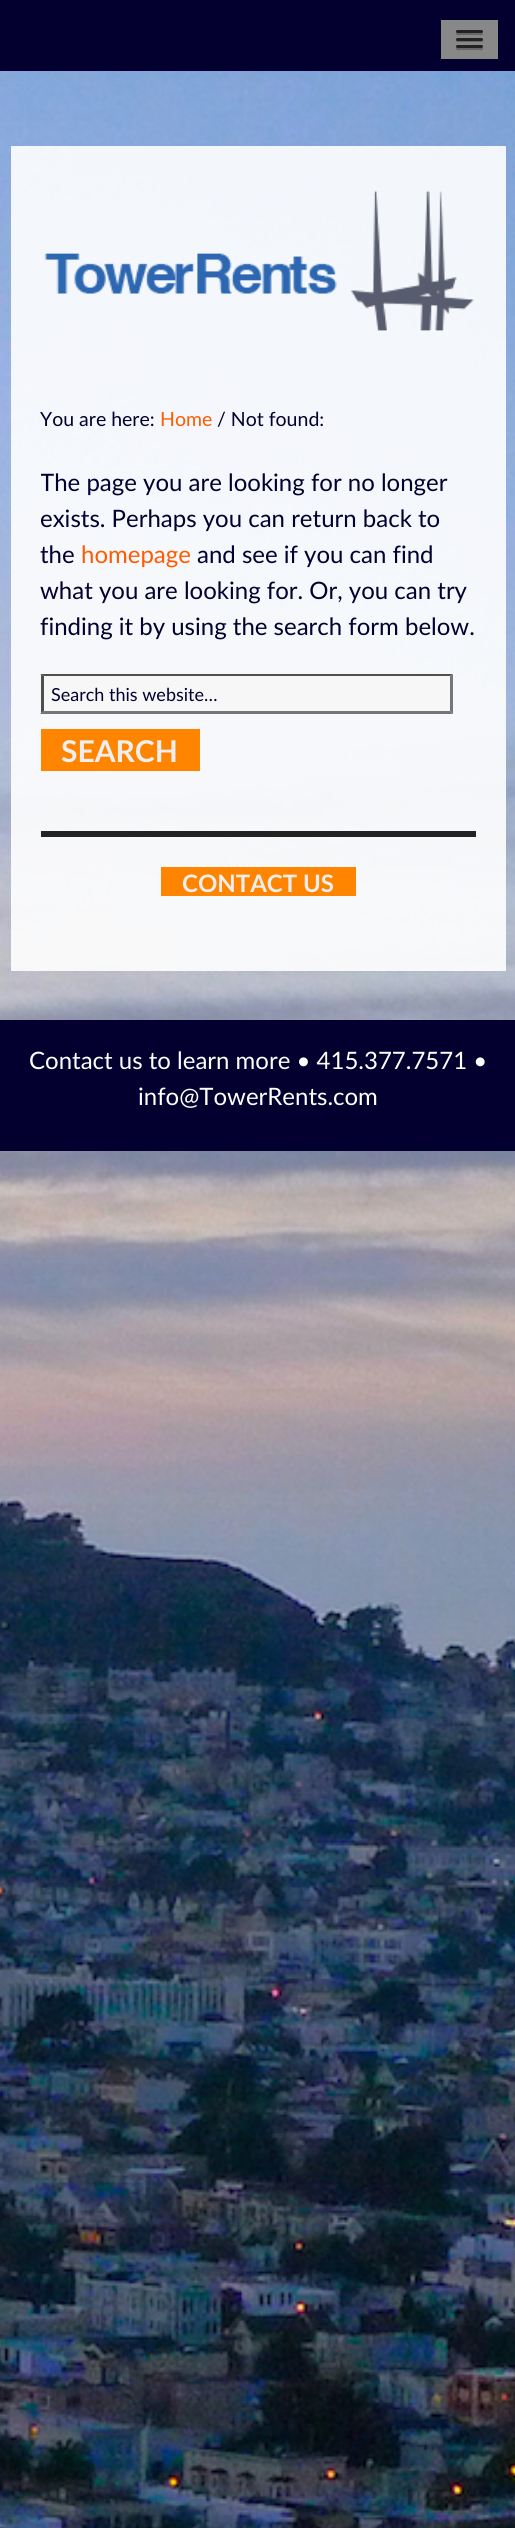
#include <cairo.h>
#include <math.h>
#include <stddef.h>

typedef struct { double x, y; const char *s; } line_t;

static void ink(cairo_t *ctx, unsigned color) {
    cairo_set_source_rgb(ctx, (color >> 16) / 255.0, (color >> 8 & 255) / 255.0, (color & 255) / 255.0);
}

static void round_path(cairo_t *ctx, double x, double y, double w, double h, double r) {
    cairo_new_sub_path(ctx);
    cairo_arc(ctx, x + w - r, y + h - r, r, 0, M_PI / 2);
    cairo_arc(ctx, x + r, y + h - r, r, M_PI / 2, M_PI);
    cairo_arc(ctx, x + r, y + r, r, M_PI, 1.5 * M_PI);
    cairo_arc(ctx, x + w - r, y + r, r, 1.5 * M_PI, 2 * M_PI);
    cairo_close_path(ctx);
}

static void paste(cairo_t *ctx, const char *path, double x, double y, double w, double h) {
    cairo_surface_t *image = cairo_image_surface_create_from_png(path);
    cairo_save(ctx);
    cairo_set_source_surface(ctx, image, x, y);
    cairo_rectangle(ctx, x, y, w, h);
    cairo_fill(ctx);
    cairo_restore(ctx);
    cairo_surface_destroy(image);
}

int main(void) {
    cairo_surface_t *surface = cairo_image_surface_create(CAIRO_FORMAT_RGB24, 515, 2528);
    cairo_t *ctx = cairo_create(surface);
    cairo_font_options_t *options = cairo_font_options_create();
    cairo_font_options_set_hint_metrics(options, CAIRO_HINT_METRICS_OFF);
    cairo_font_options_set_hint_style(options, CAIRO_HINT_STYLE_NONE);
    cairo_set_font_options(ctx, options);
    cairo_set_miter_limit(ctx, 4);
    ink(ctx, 0xFFFFFF);
    cairo_paint(ctx);
    paste(ctx, "media/1.png", 0, 71, 515, 2457);
    ink(ctx, 0x030030);
    cairo_rectangle(ctx, 0, 0, 515, 71);
    cairo_fill(ctx);
    ink(ctx, 0x888888);
    cairo_rectangle(ctx, 441, 20, 57, 39);
    cairo_fill(ctx);
    ink(ctx, 0x666666);
    cairo_new_path(ctx);
    cairo_move_to(ctx, 456.5, 32.5);
    cairo_line_to(ctx, 456, 34);
    cairo_curve_to(ctx, 456.5, 36, 461, 35, 461.5, 35);
    cairo_line_to(ctx, 477.5, 35);
    cairo_curve_to(ctx, 478, 35, 482.5, 36, 483, 34);
    cairo_line_to(ctx, 482.5, 32.5);
    cairo_line_to(ctx, 481.5, 33);
    cairo_line_to(ctx, 457.5, 33);
    cairo_close_path(ctx);
    cairo_fill(ctx);
    ink(ctx, 0x222222);
    round_path(ctx, 456, 30, 27, 3, 1.5);
    cairo_fill(ctx);
    ink(ctx, 0x666666);
    cairo_new_path(ctx);
    cairo_move_to(ctx, 456, 39.5);
    cairo_curve_to(ctx, 454.5, 43, 461.5, 42, 461.5, 42);
    cairo_line_to(ctx, 477.5, 42);
    cairo_curve_to(ctx, 477.5, 42, 484.5, 43, 483, 39.5);
    cairo_curve_to(ctx, 482.5, 40, 482, 40.5, 481.5, 40.5);
    cairo_line_to(ctx, 457.5, 40.5);
    cairo_curve_to(ctx, 457, 40.5, 456.5, 40, 456, 39.5);
    cairo_close_path(ctx);
    cairo_fill(ctx);
    ink(ctx, 0x222222);
    round_path(ctx, 456, 38, 27, 3, 1.5);
    cairo_fill(ctx);
    ink(ctx, 0x666666);
    cairo_new_path(ctx);
    cairo_move_to(ctx, 456.5, 47.5);
    cairo_line_to(ctx, 456, 49);
    cairo_curve_to(ctx, 456.5, 51, 461, 50, 461.5, 50);
    cairo_line_to(ctx, 477.5, 50);
    cairo_curve_to(ctx, 478, 50, 482.5, 51, 483, 49);
    cairo_line_to(ctx, 482.5, 47.5);
    cairo_line_to(ctx, 481.5, 48);
    cairo_line_to(ctx, 457.5, 48);
    cairo_close_path(ctx);
    cairo_fill(ctx);
    ink(ctx, 0x222222);
    round_path(ctx, 456, 45, 27, 3, 1.5);
    cairo_fill(ctx);
    cairo_set_source_rgba(ctx, 1, 1, 1, 0.9);
    cairo_rectangle(ctx, 11, 146, 495, 825);
    cairo_fill(ctx);
    paste(ctx, "media/2.png", 44, 190, 430, 142);
    cairo_select_font_face(ctx, "Lato", CAIRO_FONT_SLANT_NORMAL, CAIRO_FONT_WEIGHT_NORMAL);
    cairo_set_font_size(ctx, 19.5);
    ink(ctx, 0x030030);
    cairo_move_to(ctx, 40, 426);
    cairo_show_text(ctx, "You are here:");
    ink(ctx, 0xFF5B00);
    cairo_move_to(ctx, 160, 426);
    cairo_show_text(ctx, "Home");
    ink(ctx, 0x030030);
    cairo_move_to(ctx, 217, 426);
    cairo_show_text(ctx, "/ Not found:");
    cairo_save(ctx);
    cairo_rectangle(ctx, 41, 464, 435, 307);
    cairo_clip(ctx);
    cairo_set_font_size(ctx, 24);
    cairo_move_to(ctx, 40, 491);
    cairo_show_text(ctx, "The page you are looking for no longer");
    cairo_restore(ctx);
    cairo_set_font_size(ctx, 24);
    cairo_move_to(ctx, 40, 527);
    cairo_show_text(ctx, "exists. Perhaps you can return back to");
    cairo_move_to(ctx, 40, 563);
    cairo_show_text(ctx, "the");
    ink(ctx, 0xFF5B00);
    cairo_move_to(ctx, 81, 563);
    cairo_show_text(ctx, "homepage");
    ink(ctx, 0x030030);
    {
        static const line_t items[] = {
            {197, 563, "and see if you can find"},
            {40, 599, "what you are looking for. Or, you can try"},
            {40, 635, "finding it by using the search form below."},
        };
        for (size_t i = 0; i < sizeof items / sizeof *items; i++) {
            cairo_move_to(ctx, items[i].x, items[i].y);
            cairo_show_text(ctx, items[i].s);
        }
    }
    ink(ctx, 0xF7F7F7);
    cairo_rectangle(ctx, 41, 674, 412, 40);
    cairo_fill(ctx);
    ink(ctx, 0x4F4F4F);
    cairo_new_path(ctx);
    cairo_move_to(ctx, 40, 674);
    cairo_line_to(ctx, 453, 674);
    cairo_line_to(ctx, 450, 676);
    cairo_line_to(ctx, 44, 676);
    cairo_close_path(ctx);
    cairo_fill(ctx);
    ink(ctx, 0x767676);
    cairo_new_path(ctx);
    cairo_move_to(ctx, 453, 674);
    cairo_line_to(ctx, 453, 714);
    cairo_line_to(ctx, 450, 711);
    cairo_line_to(ctx, 450, 676);
    cairo_close_path(ctx);
    cairo_fill(ctx);
    cairo_new_path(ctx);
    cairo_move_to(ctx, 453, 714);
    cairo_line_to(ctx, 40, 714);
    cairo_line_to(ctx, 44, 711);
    cairo_line_to(ctx, 450, 711);
    cairo_close_path(ctx);
    cairo_fill(ctx);
    cairo_save(ctx);
    cairo_rectangle(ctx, 41, 464, 435, 307);
    cairo_clip(ctx);
    ink(ctx, 0x4F4F4F);
    cairo_new_path(ctx);
    cairo_move_to(ctx, 40, 714);
    cairo_line_to(ctx, 40, 674);
    cairo_line_to(ctx, 44, 676);
    cairo_line_to(ctx, 44, 711);
    cairo_close_path(ctx);
    cairo_fill(ctx);
    cairo_restore(ctx);
    cairo_set_font_size(ctx, 18);
    ink(ctx, 0x030030);
    cairo_move_to(ctx, 51, 701);
    cairo_show_text(ctx, "Search this website…");
    ink(ctx, 0xFF8500);
    cairo_rectangle(ctx, 41, 729, 159, 42);
    cairo_fill(ctx);
    cairo_select_font_face(ctx, "Lato", CAIRO_FONT_SLANT_NORMAL, CAIRO_FONT_WEIGHT_BOLD);
    cairo_set_font_size(ctx, 30);
    ink(ctx, 0xEEEEEE);
    cairo_move_to(ctx, 61, 762);
    cairo_show_text(ctx, "SEARCH");
    ink(ctx, 0x232323);
    cairo_rectangle(ctx, 41, 831, 435, 6);
    cairo_fill(ctx);
    ink(ctx, 0xFF8500);
    cairo_rectangle(ctx, 161, 867, 195, 29);
    cairo_fill(ctx);
    cairo_set_font_size(ctx, 24);
    ink(ctx, 0xEEEEEE);
    cairo_move_to(ctx, 182, 892);
    cairo_show_text(ctx, "CONTACT US");
    ink(ctx, 0x030030);
    cairo_rectangle(ctx, 0, 1020, 515, 131);
    cairo_fill(ctx);
    cairo_select_font_face(ctx, "Lato", CAIRO_FONT_SLANT_NORMAL, CAIRO_FONT_WEIGHT_NORMAL);
    ink(ctx, 0xFFFFFF);
    cairo_move_to(ctx, 29, 1069);
    cairo_show_text(ctx, "Contact us to learn more • 415.377.7571 •");
    cairo_move_to(ctx, 138, 1105);
    cairo_show_text(ctx, "info@TowerRents.com");
    cairo_surface_write_to_png(surface, "image.png");
    cairo_font_options_destroy(options);
    cairo_destroy(ctx);
    cairo_surface_destroy(surface);
    return 0;
}
